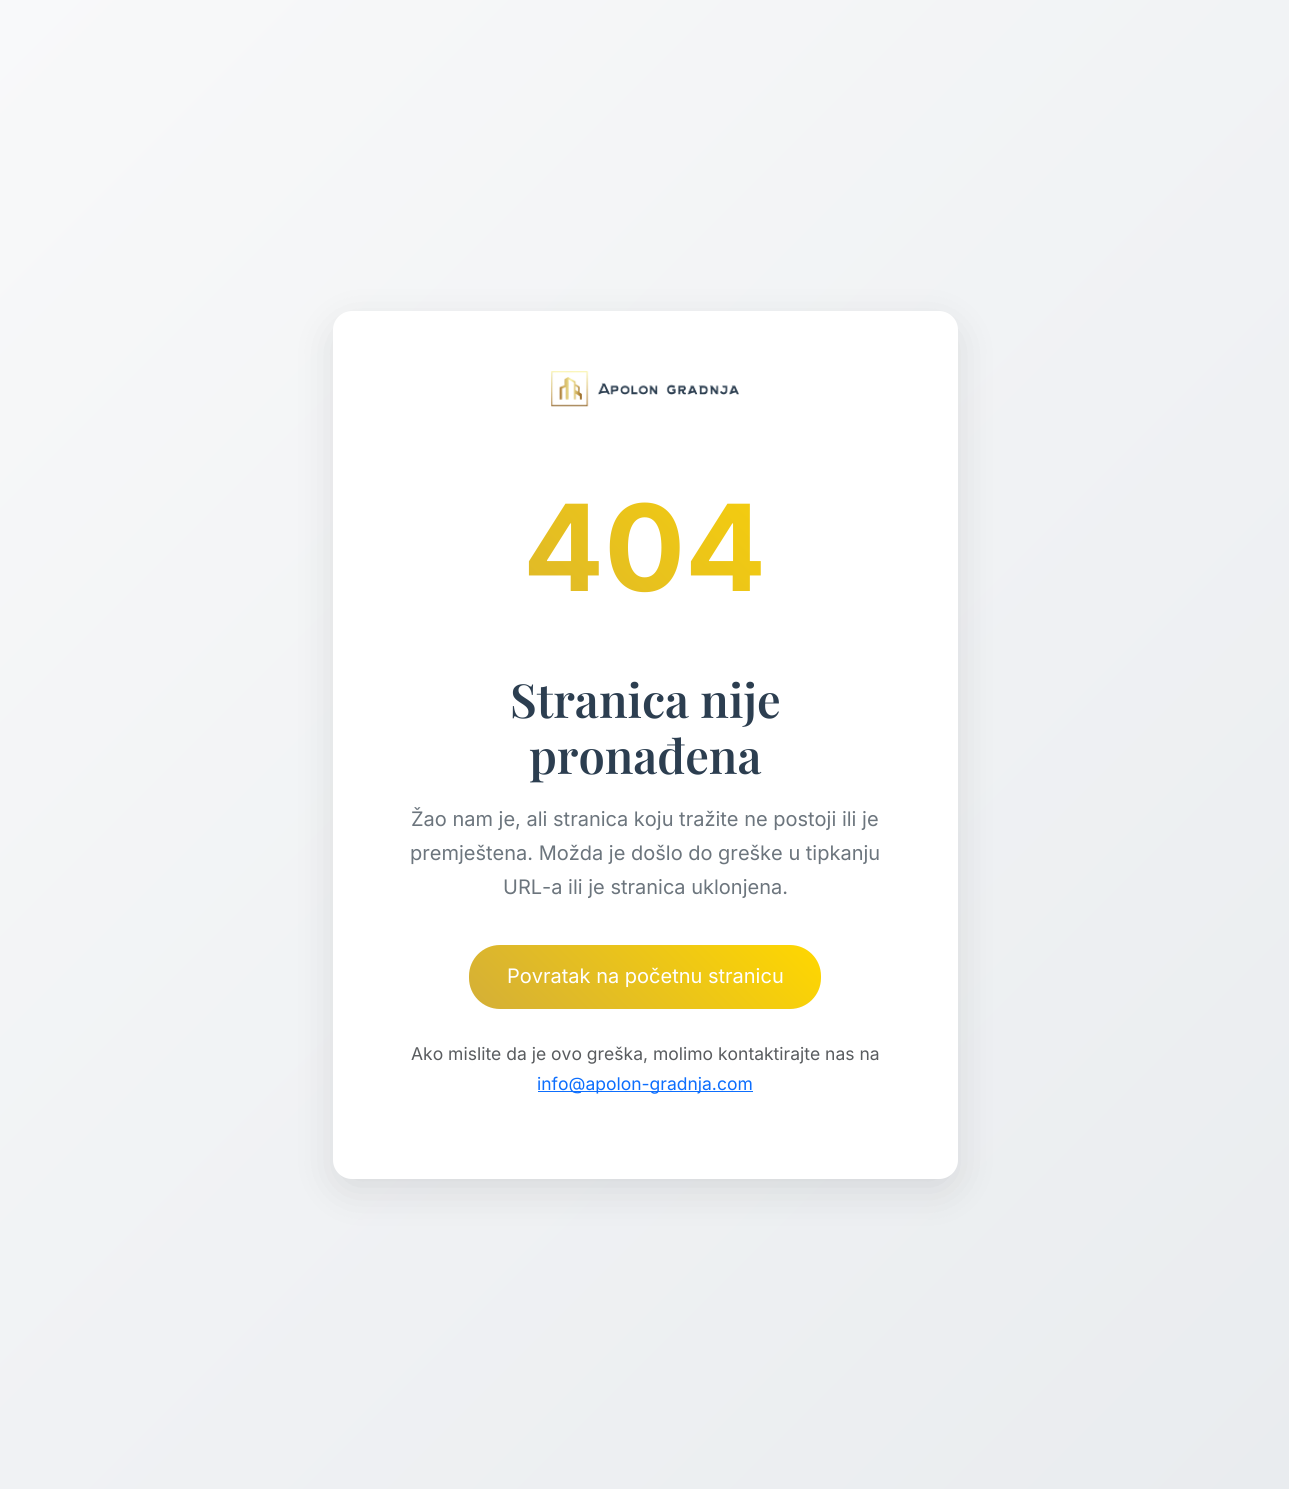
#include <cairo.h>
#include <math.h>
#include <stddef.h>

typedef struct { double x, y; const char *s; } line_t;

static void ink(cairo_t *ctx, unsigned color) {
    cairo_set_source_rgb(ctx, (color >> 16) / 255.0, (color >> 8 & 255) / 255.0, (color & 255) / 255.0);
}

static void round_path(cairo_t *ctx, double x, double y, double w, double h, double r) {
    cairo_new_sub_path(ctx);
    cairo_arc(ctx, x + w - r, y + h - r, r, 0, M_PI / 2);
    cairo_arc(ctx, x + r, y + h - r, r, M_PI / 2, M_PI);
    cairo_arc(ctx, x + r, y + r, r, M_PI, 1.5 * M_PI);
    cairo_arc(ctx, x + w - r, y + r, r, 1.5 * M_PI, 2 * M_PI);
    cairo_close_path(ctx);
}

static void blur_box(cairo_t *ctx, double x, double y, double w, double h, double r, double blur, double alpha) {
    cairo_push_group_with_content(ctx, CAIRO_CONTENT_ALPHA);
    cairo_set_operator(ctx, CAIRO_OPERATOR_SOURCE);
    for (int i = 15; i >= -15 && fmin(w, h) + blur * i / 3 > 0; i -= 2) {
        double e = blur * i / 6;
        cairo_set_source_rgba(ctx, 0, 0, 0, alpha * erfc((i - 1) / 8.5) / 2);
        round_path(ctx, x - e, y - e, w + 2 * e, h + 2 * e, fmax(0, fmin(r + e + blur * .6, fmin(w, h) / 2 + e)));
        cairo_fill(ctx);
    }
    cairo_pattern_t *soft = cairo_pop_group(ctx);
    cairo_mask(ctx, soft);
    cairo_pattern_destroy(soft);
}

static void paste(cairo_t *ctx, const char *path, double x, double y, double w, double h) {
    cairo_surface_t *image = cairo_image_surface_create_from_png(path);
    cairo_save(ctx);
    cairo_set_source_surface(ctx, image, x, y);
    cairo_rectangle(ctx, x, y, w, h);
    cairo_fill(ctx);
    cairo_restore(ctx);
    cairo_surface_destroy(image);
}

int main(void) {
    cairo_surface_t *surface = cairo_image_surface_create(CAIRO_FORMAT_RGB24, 1289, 1489);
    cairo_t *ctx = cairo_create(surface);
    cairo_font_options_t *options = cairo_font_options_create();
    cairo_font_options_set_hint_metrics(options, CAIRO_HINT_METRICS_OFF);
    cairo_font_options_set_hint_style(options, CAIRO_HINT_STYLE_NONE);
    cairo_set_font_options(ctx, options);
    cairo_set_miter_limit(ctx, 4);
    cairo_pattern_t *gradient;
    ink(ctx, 0xFFFFFF);
    cairo_paint(ctx);
    gradient = cairo_pattern_create_linear(-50, 50, 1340, 1440);
    cairo_pattern_add_color_stop_rgba(gradient, 0, 0.973, 0.976, 0.98, 1);
    cairo_pattern_add_color_stop_rgba(gradient, 1, 0.914, 0.925, 0.937, 1);
    cairo_set_source(ctx, gradient);
    cairo_pattern_destroy(gradient);
    cairo_rectangle(ctx, 0, 0, 1289, 1489);
    cairo_fill(ctx);
    ink(ctx, 0x000000);
    blur_box(ctx, 333, 324, 625, 867, 19, 19, 0.1);
    ink(ctx, 0xFFFFFF);
    round_path(ctx, 333, 311, 625, 868, 19);
    cairo_fill(ctx);
    paste(ctx, "media/1.png", 551, 371, 188, 36);
    cairo_select_font_face(ctx, "Inter", CAIRO_FONT_SLANT_NORMAL, CAIRO_FONT_WEIGHT_BOLD);
    cairo_set_font_size(ctx, 120);
    gradient = cairo_pattern_create_linear(468, 726, 822, 371);
    cairo_pattern_add_color_stop_rgba(gradient, 0, 0.831, 0.686, 0.216, 1);
    cairo_pattern_add_color_stop_rgba(gradient, 1, 1, 0.843, 0, 1);
    cairo_set_source(ctx, gradient);
    cairo_pattern_destroy(gradient);
    cairo_move_to(ctx, 523, 591);
    cairo_show_text(ctx, "404");
    cairo_select_font_face(ctx, "Playfair Display SemiBold", CAIRO_FONT_SLANT_NORMAL, CAIRO_FONT_WEIGHT_NORMAL);
    cairo_set_font_size(ctx, 47);
    ink(ctx, 0x2C3E50);
    cairo_move_to(ctx, 510, 718);
    cairo_show_text(ctx, "Stranica nije");
    cairo_move_to(ctx, 529, 774);
    cairo_show_text(ctx, "pronađena");
    cairo_select_font_face(ctx, "Inter", CAIRO_FONT_SLANT_NORMAL, CAIRO_FONT_WEIGHT_NORMAL);
    cairo_set_font_size(ctx, 20);
    ink(ctx, 0x6C757D);
    {
        static const line_t items[] = {
            {411, 826, "Žao nam je, ali stranica koju tražite ne postoji ili je"},
            {410, 860, "premještena. Možda je došlo do greške u tipkanju"},
            {503, 894, "URL-a ili je stranica uklonjena."},
        };
        for (size_t i = 0; i < sizeof items / sizeof *items; i++) {
            cairo_move_to(ctx, items[i].x, items[i].y);
            cairo_show_text(ctx, items[i].s);
        }
    }
    gradient = cairo_pattern_create_linear(541, 1081, 749, 873);
    cairo_pattern_add_color_stop_rgba(gradient, 0, 0.831, 0.686, 0.216, 1);
    cairo_pattern_add_color_stop_rgba(gradient, 1, 1, 0.843, 0, 1);
    cairo_set_source(ctx, gradient);
    cairo_pattern_destroy(gradient);
    round_path(ctx, 469, 945, 352, 64, 31);
    cairo_fill(ctx);
    ink(ctx, 0xFFFFFF);
    cairo_move_to(ctx, 507, 983);
    cairo_show_text(ctx, "Povratak na početnu stranicu");
    cairo_set_font_size(ctx, 17.5);
    ink(ctx, 0x595C5F);
    cairo_move_to(ctx, 411, 1060);
    cairo_show_text(ctx, "Ako mislite da je ovo greška, molimo kontaktirajte nas na");
    ink(ctx, 0x0D6EFD);
    cairo_rectangle(ctx, 538, 1091, 215, 1);
    cairo_fill(ctx);
    cairo_move_to(ctx, 537, 1090);
    cairo_show_text(ctx, "info@apolon-gradnja.com");
    cairo_surface_write_to_png(surface, "image.png");
    cairo_font_options_destroy(options);
    cairo_destroy(ctx);
    cairo_surface_destroy(surface);
    return 0;
}
